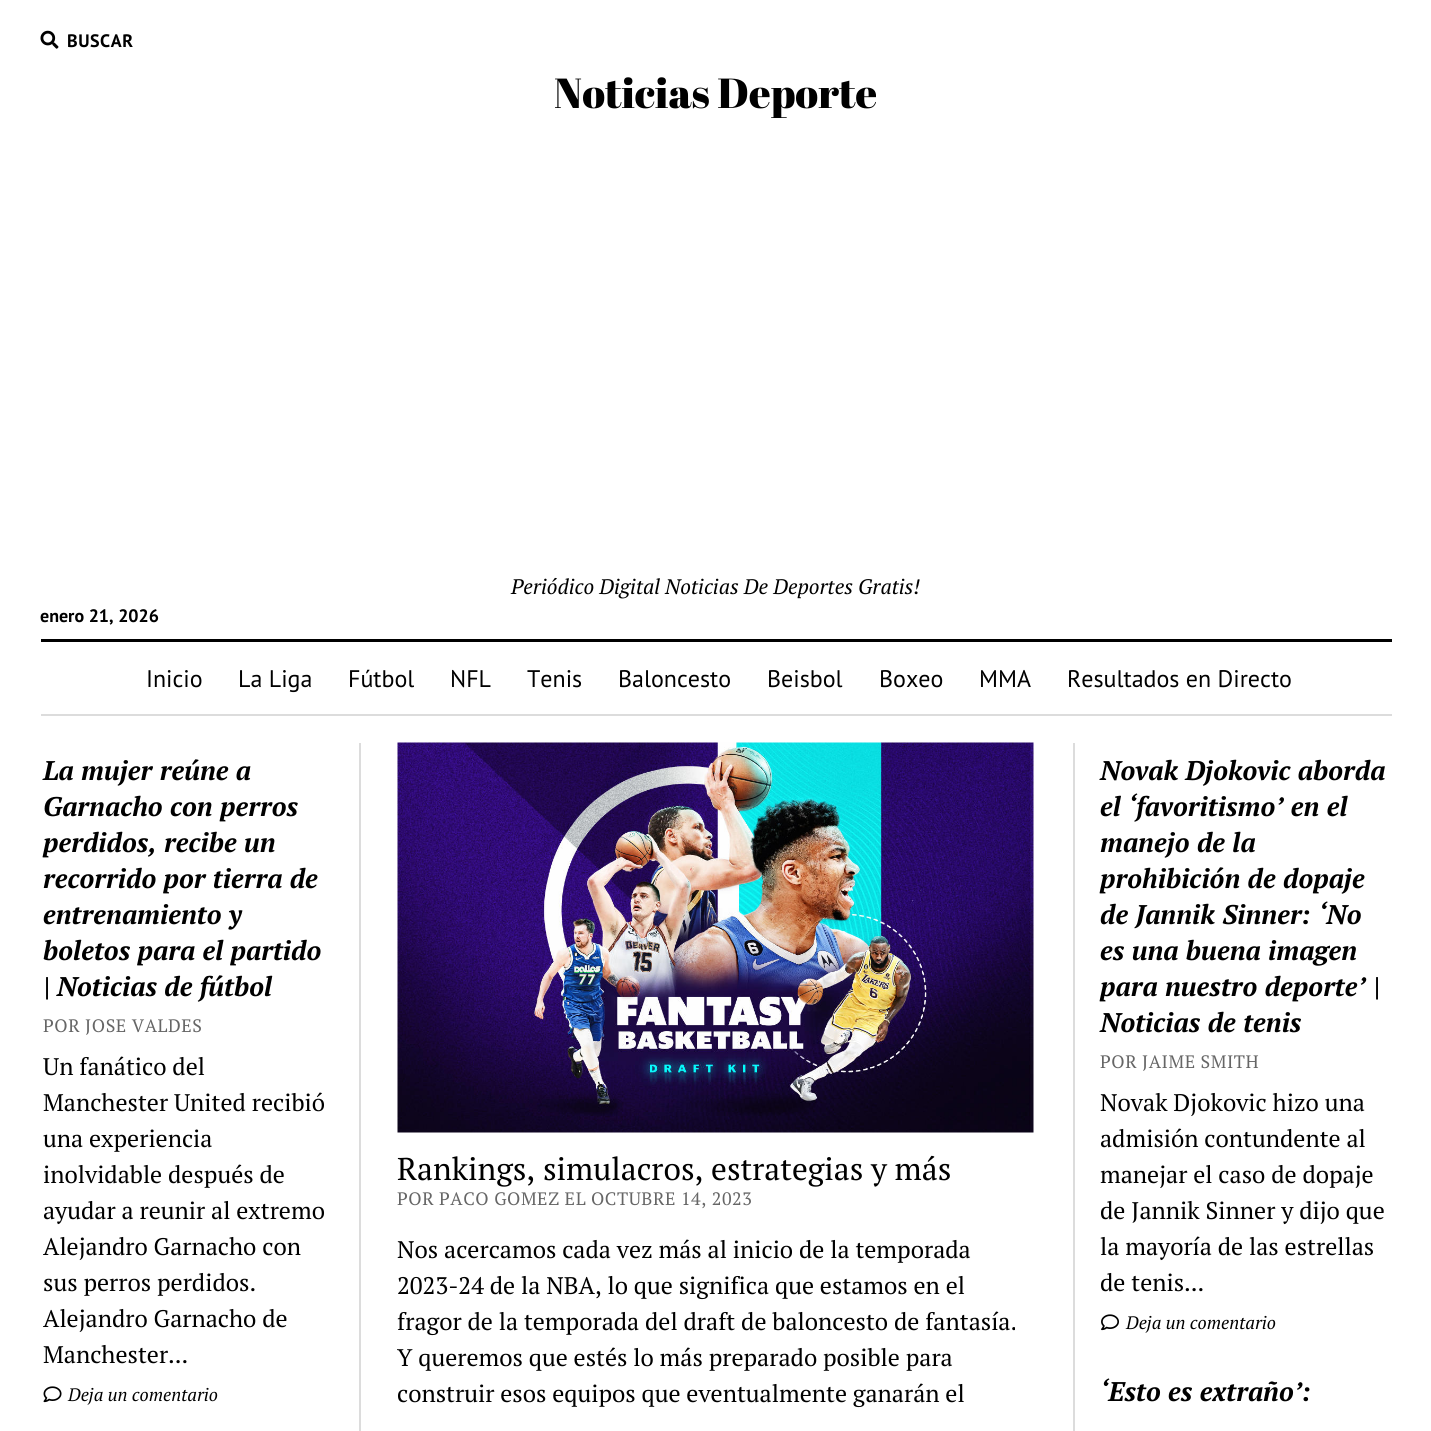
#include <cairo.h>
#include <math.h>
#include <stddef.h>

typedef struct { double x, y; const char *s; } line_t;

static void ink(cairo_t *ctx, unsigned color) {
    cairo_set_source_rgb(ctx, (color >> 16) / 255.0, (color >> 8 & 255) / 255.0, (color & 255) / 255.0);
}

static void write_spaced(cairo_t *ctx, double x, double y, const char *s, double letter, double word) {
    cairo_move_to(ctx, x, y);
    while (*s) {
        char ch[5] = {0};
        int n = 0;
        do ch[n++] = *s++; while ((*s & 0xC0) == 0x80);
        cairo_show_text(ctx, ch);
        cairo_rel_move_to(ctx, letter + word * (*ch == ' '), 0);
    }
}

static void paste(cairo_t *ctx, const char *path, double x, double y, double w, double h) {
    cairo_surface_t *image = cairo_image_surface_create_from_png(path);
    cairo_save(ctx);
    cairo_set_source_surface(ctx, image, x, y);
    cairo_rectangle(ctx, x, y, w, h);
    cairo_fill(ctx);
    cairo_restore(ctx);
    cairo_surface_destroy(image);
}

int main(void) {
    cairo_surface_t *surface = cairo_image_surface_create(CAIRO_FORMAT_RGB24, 1431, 1431);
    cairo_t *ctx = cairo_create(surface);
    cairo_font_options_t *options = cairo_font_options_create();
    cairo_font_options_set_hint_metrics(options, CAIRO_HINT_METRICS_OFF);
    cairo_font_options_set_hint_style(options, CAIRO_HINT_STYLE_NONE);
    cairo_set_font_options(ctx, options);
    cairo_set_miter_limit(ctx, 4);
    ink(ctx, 0xFFFFFF);
    cairo_paint(ctx);
    paste(ctx, "media/1.png", 40, 30, 19, 19);
    cairo_select_font_face(ctx, "PT Sans", CAIRO_FONT_SLANT_NORMAL, CAIRO_FONT_WEIGHT_BOLD);
    cairo_set_font_size(ctx, 18);
    ink(ctx, 0x000000);
    write_spaced(ctx, 67, 47, "BUSCAR", 0.55, 0);
    cairo_select_font_face(ctx, "Abril Fatface", CAIRO_FONT_SLANT_NORMAL, CAIRO_FONT_WEIGHT_NORMAL);
    cairo_set_font_size(ctx, 42);
    cairo_move_to(ctx, 554, 108);
    cairo_show_text(ctx, "Noticias Deporte");
    cairo_select_font_face(ctx, "PT Serif", CAIRO_FONT_SLANT_ITALIC, CAIRO_FONT_WEIGHT_NORMAL);
    cairo_set_font_size(ctx, 21);
    cairo_move_to(ctx, 511, 594);
    cairo_show_text(ctx, "Periódico Digital Noticias De Deportes Gratis!");
    cairo_select_font_face(ctx, "PT Sans", CAIRO_FONT_SLANT_NORMAL, CAIRO_FONT_WEIGHT_BOLD);
    cairo_set_font_size(ctx, 18);
    cairo_move_to(ctx, 40, 622);
    cairo_show_text(ctx, "enero 21, 2026");
    cairo_rectangle(ctx, 41, 639, 1351, 3);
    cairo_fill(ctx);
    ink(ctx, 0xDCDCDC);
    cairo_rectangle(ctx, 41, 714, 1351, 2);
    cairo_fill(ctx);
    cairo_select_font_face(ctx, "PT Sans", CAIRO_FONT_SLANT_NORMAL, CAIRO_FONT_WEIGHT_NORMAL);
    cairo_set_font_size(ctx, 24);
    ink(ctx, 0x000000);
    {
        static const line_t items[] = {
            {146, 687, "Inicio"},
            {238, 687, "La Liga"},
            {348, 687, "Fútbol"},
            {450, 687, "NFL"},
            {527, 687, "Tenis"},
            {618, 687, "Baloncesto"},
            {767, 687, "Beisbol"},
            {879, 687, "Boxeo"},
            {979, 687, "MMA"},
            {1067, 687, "Resultados en Directo"},
        };
        for (size_t i = 0; i < sizeof items / sizeof *items; i++) {
            cairo_move_to(ctx, items[i].x, items[i].y);
            cairo_show_text(ctx, items[i].s);
        }
    }
    ink(ctx, 0xDCDCDC);
    cairo_rectangle(ctx, 359, 743, 2, 688);
    cairo_fill(ctx);
    cairo_rectangle(ctx, 1073, 743, 2, 688);
    cairo_fill(ctx);
    cairo_select_font_face(ctx, "PT Serif", CAIRO_FONT_SLANT_ITALIC, CAIRO_FONT_WEIGHT_BOLD);
    cairo_set_font_size(ctx, 27);
    ink(ctx, 0x000000);
    {
        static const line_t items[] = {
            {43, 780, "La mujer reúne a"},
            {43, 816, "Garnacho con perros"},
            {43, 852, "perdidos, recibe un"},
            {43, 888, "recorrido por tierra de"},
            {43, 924, "entrenamiento y"},
            {43, 960, "boletos para el partido"},
            {43, 996, "| Noticias de fútbol"},
        };
        for (size_t i = 0; i < sizeof items / sizeof *items; i++) {
            cairo_move_to(ctx, items[i].x, items[i].y);
            cairo_show_text(ctx, items[i].s);
        }
    }
    cairo_select_font_face(ctx, "PT Serif", CAIRO_FONT_SLANT_NORMAL, CAIRO_FONT_WEIGHT_NORMAL);
    cairo_set_font_size(ctx, 18);
    ink(ctx, 0x666666);
    write_spaced(ctx, 43, 1032, "POR JOSE VALDES", 0.55, 0);
    cairo_set_font_size(ctx, 24);
    ink(ctx, 0x000000);
    {
        static const line_t items[] = {
            {43, 1075, "Un fanático del"},
            {43, 1111, "Manchester United recibió"},
            {43, 1147, "una experiencia"},
            {43, 1183, "inolvidable después de"},
            {43, 1219, "ayudar a reunir al extremo"},
            {43, 1255, "Alejandro Garnacho con"},
            {43, 1291, "sus perros perdidos."},
            {43, 1327, "Alejandro Garnacho de"},
            {43, 1363, "Manchester..."},
        };
        for (size_t i = 0; i < sizeof items / sizeof *items; i++) {
            cairo_move_to(ctx, items[i].x, items[i].y);
            cairo_show_text(ctx, items[i].s);
        }
    }
    paste(ctx, "media/2.png", 43, 1386, 19, 17);
    cairo_select_font_face(ctx, "PT Serif", CAIRO_FONT_SLANT_ITALIC, CAIRO_FONT_WEIGHT_NORMAL);
    cairo_set_font_size(ctx, 18);
    cairo_move_to(ctx, 68, 1401);
    cairo_show_text(ctx, "Deja un comentario");
    paste(ctx, "media/3.png", 397, 742, 637, 391);
    cairo_select_font_face(ctx, "PT Serif", CAIRO_FONT_SLANT_NORMAL, CAIRO_FONT_WEIGHT_NORMAL);
    cairo_set_font_size(ctx, 31.5);
    cairo_move_to(ctx, 397, 1180);
    cairo_show_text(ctx, "Rankings, simulacros, estrategias y más");
    cairo_set_font_size(ctx, 18);
    ink(ctx, 0x666666);
    write_spaced(ctx, 397, 1205, "POR PACO GOMEZ EL OCTUBRE 14, 2023", 0.55, 0);
    cairo_set_font_size(ctx, 24);
    ink(ctx, 0x000000);
    {
        static const line_t items[] = {
            {397, 1258, "Nos acercamos cada vez más al inicio de la temporada"},
            {397, 1294, "2023-24 de la NBA, lo que significa que estamos en el"},
            {397, 1330, "fragor de la temporada del draft de baloncesto de fantasía."},
            {397, 1366, "Y queremos que estés lo más preparado posible para"},
            {397, 1402, "construir esos equipos que eventualmente ganarán el"},
        };
        for (size_t i = 0; i < sizeof items / sizeof *items; i++) {
            cairo_move_to(ctx, items[i].x, items[i].y);
            cairo_show_text(ctx, items[i].s);
        }
    }
    cairo_select_font_face(ctx, "PT Serif", CAIRO_FONT_SLANT_ITALIC, CAIRO_FONT_WEIGHT_BOLD);
    cairo_set_font_size(ctx, 27);
    {
        static const line_t items[] = {
            {1100, 780, "Novak Djokovic aborda"},
            {1100, 816, "el ‘favoritismo’ en el"},
            {1100, 852, "manejo de la"},
            {1100, 888, "prohibición de dopaje"},
            {1100, 924, "de Jannik Sinner: ‘No"},
            {1100, 960, "es una buena imagen"},
            {1100, 996, "para nuestro deporte’ |"},
            {1100, 1032, "Noticias de tenis"},
        };
        for (size_t i = 0; i < sizeof items / sizeof *items; i++) {
            cairo_move_to(ctx, items[i].x, items[i].y);
            cairo_show_text(ctx, items[i].s);
        }
    }
    cairo_select_font_face(ctx, "PT Serif", CAIRO_FONT_SLANT_NORMAL, CAIRO_FONT_WEIGHT_NORMAL);
    cairo_set_font_size(ctx, 18);
    ink(ctx, 0x666666);
    write_spaced(ctx, 1100, 1068, "POR JAIME SMITH", 0.55, 0);
    cairo_set_font_size(ctx, 24);
    ink(ctx, 0x000000);
    {
        static const line_t items[] = {
            {1100, 1111, "Novak Djokovic hizo una"},
            {1100, 1147, "admisión contundente al"},
            {1100, 1183, "manejar el caso de dopaje"},
            {1100, 1219, "de Jannik Sinner y dijo que"},
            {1100, 1255, "la mayoría de las estrellas"},
            {1100, 1291, "de tenis..."},
        };
        for (size_t i = 0; i < sizeof items / sizeof *items; i++) {
            cairo_move_to(ctx, items[i].x, items[i].y);
            cairo_show_text(ctx, items[i].s);
        }
    }
    paste(ctx, "media/4.png", 1101, 1314, 18, 17);
    cairo_select_font_face(ctx, "PT Serif", CAIRO_FONT_SLANT_ITALIC, CAIRO_FONT_WEIGHT_NORMAL);
    cairo_set_font_size(ctx, 18);
    cairo_move_to(ctx, 1126, 1329);
    cairo_show_text(ctx, "Deja un comentario");
    cairo_select_font_face(ctx, "PT Serif", CAIRO_FONT_SLANT_ITALIC, CAIRO_FONT_WEIGHT_BOLD);
    cairo_set_font_size(ctx, 27);
    cairo_move_to(ctx, 1100, 1401);
    cairo_show_text(ctx, "‘Esto es extraño’:");
    cairo_surface_write_to_png(surface, "image.png");
    cairo_font_options_destroy(options);
    cairo_destroy(ctx);
    cairo_surface_destroy(surface);
    return 0;
}
